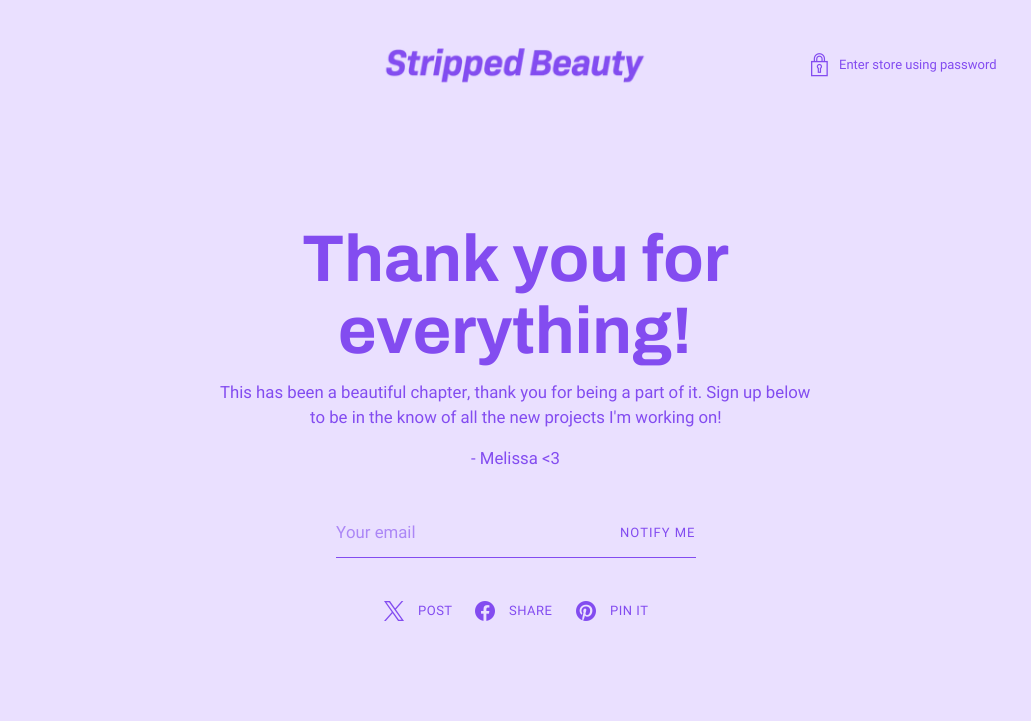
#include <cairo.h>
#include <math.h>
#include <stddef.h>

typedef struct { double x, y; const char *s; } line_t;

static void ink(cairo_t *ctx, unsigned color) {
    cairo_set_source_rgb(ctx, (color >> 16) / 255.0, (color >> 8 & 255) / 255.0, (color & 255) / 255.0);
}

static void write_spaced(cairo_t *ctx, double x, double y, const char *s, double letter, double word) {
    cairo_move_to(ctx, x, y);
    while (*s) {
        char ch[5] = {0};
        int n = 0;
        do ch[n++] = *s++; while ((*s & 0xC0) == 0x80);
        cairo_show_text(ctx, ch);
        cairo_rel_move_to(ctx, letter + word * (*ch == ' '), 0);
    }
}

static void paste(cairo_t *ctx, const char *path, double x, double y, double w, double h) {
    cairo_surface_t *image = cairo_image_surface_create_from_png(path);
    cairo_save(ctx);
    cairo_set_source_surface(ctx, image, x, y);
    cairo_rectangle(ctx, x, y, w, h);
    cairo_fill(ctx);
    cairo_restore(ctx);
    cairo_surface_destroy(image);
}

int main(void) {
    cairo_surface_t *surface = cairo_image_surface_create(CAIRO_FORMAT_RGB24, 1031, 721);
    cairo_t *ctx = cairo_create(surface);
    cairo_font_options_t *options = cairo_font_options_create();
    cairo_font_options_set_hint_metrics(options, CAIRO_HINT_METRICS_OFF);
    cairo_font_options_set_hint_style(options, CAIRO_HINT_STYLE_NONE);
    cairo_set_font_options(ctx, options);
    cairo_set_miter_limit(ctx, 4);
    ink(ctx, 0xEAE0FF);
    cairo_paint(ctx);
    paste(ctx, "media/1.png", 385, 48, 260, 35);
    paste(ctx, "media/2.png", 811, 53, 17, 24);
    cairo_select_font_face(ctx, "Roboto", CAIRO_FONT_SLANT_NORMAL, CAIRO_FONT_WEIGHT_NORMAL);
    cairo_set_font_size(ctx, 13);
    ink(ctx, 0x834CF0);
    cairo_move_to(ctx, 839, 69);
    cairo_show_text(ctx, "Enter store using password");
    cairo_select_font_face(ctx, "Archivo", CAIRO_FONT_SLANT_NORMAL, CAIRO_FONT_WEIGHT_BOLD);
    cairo_set_font_size(ctx, 66);
    cairo_move_to(ctx, 302, 281);
    cairo_show_text(ctx, "Thank you for");
    cairo_move_to(ctx, 338, 353);
    cairo_show_text(ctx, "everything!");
    cairo_select_font_face(ctx, "Roboto", CAIRO_FONT_SLANT_NORMAL, CAIRO_FONT_WEIGHT_NORMAL);
    cairo_set_font_size(ctx, 16.75);
    {
        static const line_t items[] = {
            {220, 398, "This has been a beautiful chapter, thank you for being a part of it. Sign up below"},
            {310, 423, "to be in the know of all the new projects I'm working on!"},
            {471, 464, "- Melissa <3"},
        };
        for (size_t i = 0; i < sizeof items / sizeof *items; i++) {
            cairo_move_to(ctx, items[i].x, items[i].y);
            cairo_show_text(ctx, items[i].s);
        }
    }
    cairo_rectangle(ctx, 336, 557, 360, 1);
    cairo_fill(ctx);
    ink(ctx, 0xAC87F6);
    cairo_move_to(ctx, 336, 538);
    cairo_show_text(ctx, "Your email");
    cairo_set_font_size(ctx, 13);
    ink(ctx, 0x834CF0);
    write_spaced(ctx, 620, 537, "NOTIFY ME", 1, 0);
    paste(ctx, "media/3.png", 384, 601, 20, 20);
    write_spaced(ctx, 418, 615, "POST", 0.5, 0);
    paste(ctx, "media/4.png", 475, 601, 20, 20);
    write_spaced(ctx, 509, 615, "SHARE", 0.5, 0);
    paste(ctx, "media/5.png", 576, 601, 20, 20);
    write_spaced(ctx, 610, 615, "PIN IT", 0.5, 0);
    cairo_surface_write_to_png(surface, "image.png");
    cairo_font_options_destroy(options);
    cairo_destroy(ctx);
    cairo_surface_destroy(surface);
    return 0;
}
